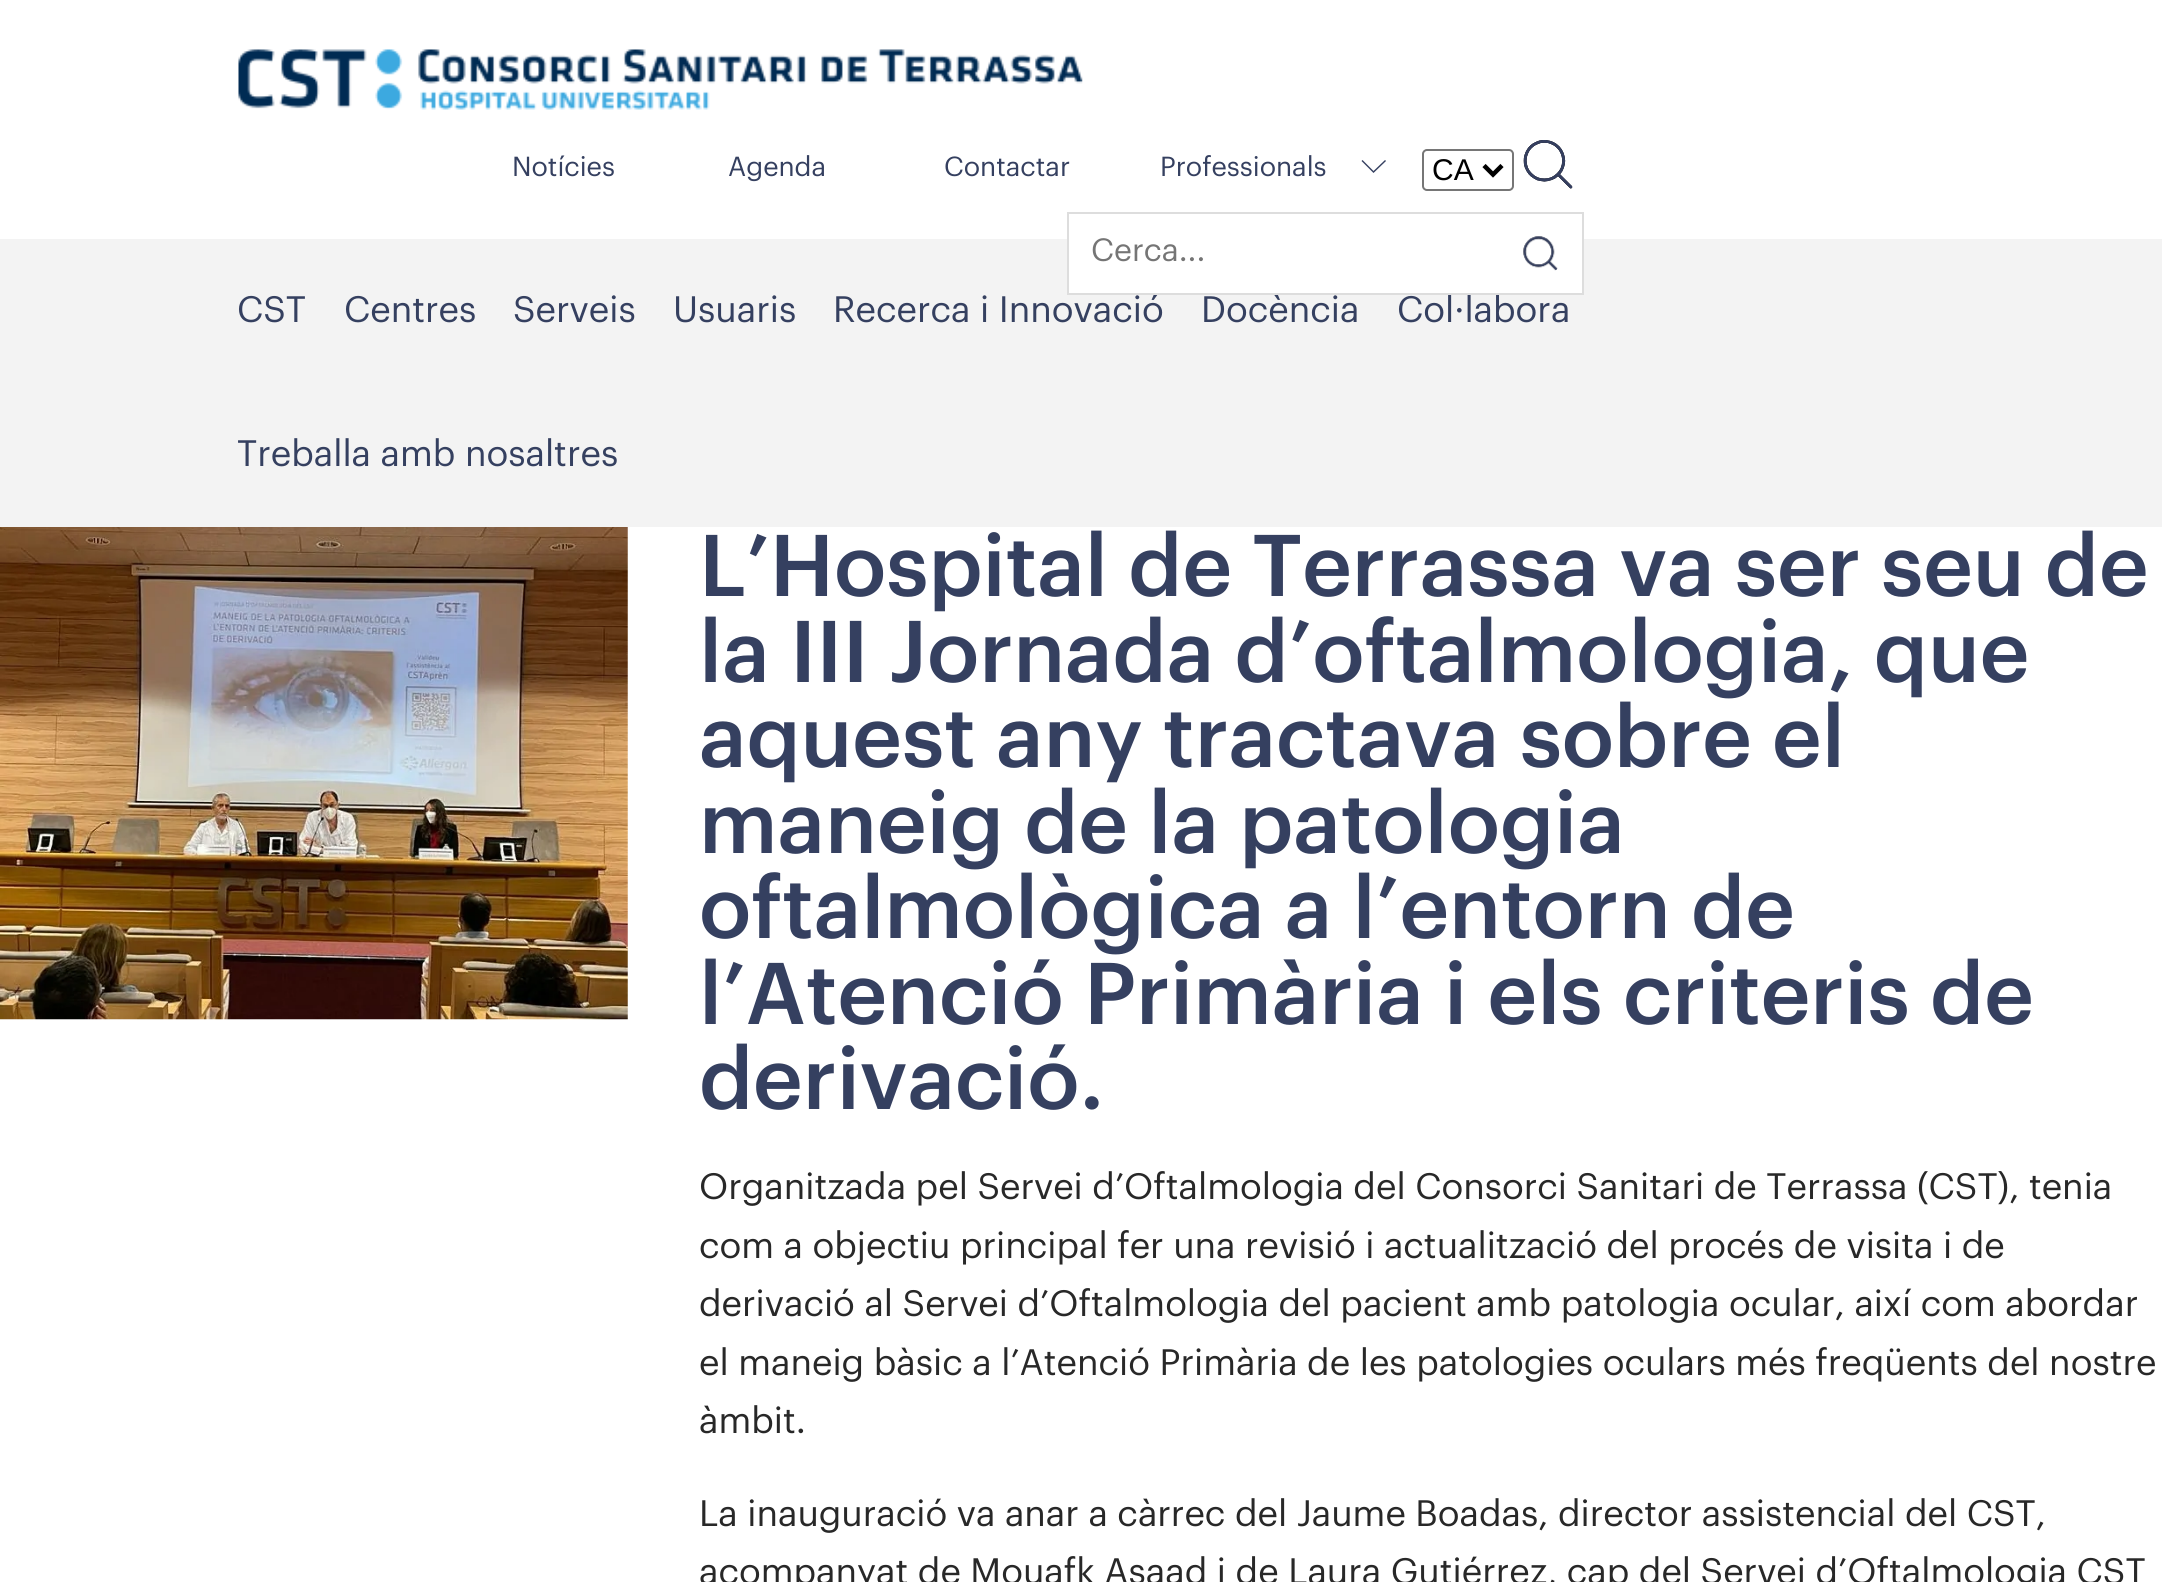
#include <cairo.h>
#include <math.h>
#include <stddef.h>

typedef struct { double x, y; const char *s; } line_t;

static void ink(cairo_t *ctx, unsigned color) {
    cairo_set_source_rgb(ctx, (color >> 16) / 255.0, (color >> 8 & 255) / 255.0, (color & 255) / 255.0);
}

static void round_path(cairo_t *ctx, double x, double y, double w, double h, double r) {
    cairo_new_sub_path(ctx);
    cairo_arc(ctx, x + w - r, y + h - r, r, 0, M_PI / 2);
    cairo_arc(ctx, x + r, y + h - r, r, M_PI / 2, M_PI);
    cairo_arc(ctx, x + r, y + r, r, M_PI, 1.5 * M_PI);
    cairo_arc(ctx, x + w - r, y + r, r, 1.5 * M_PI, 2 * M_PI);
    cairo_close_path(ctx);
}

static void paste(cairo_t *ctx, const char *path, double x, double y, double w, double h) {
    cairo_surface_t *image = cairo_image_surface_create_from_png(path);
    cairo_save(ctx);
    cairo_set_source_surface(ctx, image, x, y);
    cairo_rectangle(ctx, x, y, w, h);
    cairo_fill(ctx);
    cairo_restore(ctx);
    cairo_surface_destroy(image);
}

int main(void) {
    cairo_surface_t *surface = cairo_image_surface_create(CAIRO_FORMAT_RGB24, 2162, 1582);
    cairo_t *ctx = cairo_create(surface);
    cairo_font_options_t *options = cairo_font_options_create();
    cairo_font_options_set_hint_metrics(options, CAIRO_HINT_METRICS_OFF);
    cairo_font_options_set_hint_style(options, CAIRO_HINT_STYLE_NONE);
    cairo_set_font_options(ctx, options);
    cairo_set_miter_limit(ctx, 4);
    ink(ctx, 0xFFFFFF);
    cairo_paint(ctx);
    paste(ctx, "media/1.png", 238, 49, 845, 61);
    cairo_select_font_face(ctx, "Graphik", CAIRO_FONT_SLANT_NORMAL, CAIRO_FONT_WEIGHT_NORMAL);
    cairo_set_font_size(ctx, 27);
    ink(ctx, 0x354060);
    {
        static const line_t items[] = {
            {512, 176, "Notícies"},
            {728, 176, "Agenda"},
            {944, 176, "Contactar"},
        };
        for (size_t i = 0; i < sizeof items / sizeof *items; i++) {
            cairo_move_to(ctx, items[i].x, items[i].y);
            cairo_show_text(ctx, items[i].s);
        }
    }
    cairo_new_path(ctx);
    cairo_move_to(ctx, 1386, 161);
    cairo_line_to(ctx, 1385, 160);
    cairo_line_to(ctx, 1373.5, 171);
    cairo_line_to(ctx, 1362.5, 160);
    cairo_line_to(ctx, 1361.5, 161);
    cairo_line_to(ctx, 1373.5, 173);
    cairo_close_path(ctx);
    cairo_fill(ctx);
    cairo_move_to(ctx, 1160, 176);
    cairo_show_text(ctx, "Professionals");
    round_path(ctx, 1423, 150, 90, 40, 4);
    ink(ctx, 0x767676);
    cairo_stroke(ctx);
    cairo_new_path(ctx);
    cairo_move_to(ctx, 1484, 165.5);
    cairo_line_to(ctx, 1493, 174.5);
    cairo_line_to(ctx, 1502, 165.5);
    ink(ctx, 0x000000);
    cairo_set_line_width(ctx, 4.5);
    cairo_stroke(ctx);
    cairo_select_font_face(ctx, "Liberation Sans", CAIRO_FONT_SLANT_NORMAL, CAIRO_FONT_WEIGHT_NORMAL);
    cairo_set_font_size(ctx, 30);
    cairo_move_to(ctx, 1432, 180);
    cairo_show_text(ctx, "CA");
    paste(ctx, "media/2.png", 1523, 140, 50, 49);
    ink(ctx, 0xF3F3F3);
    cairo_rectangle(ctx, 0, 239, 2162, 288);
    cairo_fill(ctx);
    ink(ctx, 0xFFFFFF);
    cairo_rectangle(ctx, 1069, 239, 513, 54);
    cairo_fill(ctx);
    cairo_select_font_face(ctx, "Graphik", CAIRO_FONT_SLANT_NORMAL, CAIRO_FONT_WEIGHT_NORMAL);
    cairo_set_font_size(ctx, 36);
    ink(ctx, 0x354060);
    {
        static const line_t items[] = {
            {833, 322, "Recerca i Innovació"},
            {1201, 322, "Docència"},
            {1397, 322, "Col·labora"},
        };
        for (size_t i = 0; i < sizeof items / sizeof *items; i++) {
            cairo_move_to(ctx, items[i].x, items[i].y);
            cairo_show_text(ctx, items[i].s);
        }
    }
    cairo_rectangle(ctx, 1068, 213, 515, 81);
    ink(ctx, 0xDDDDDD);
    cairo_set_line_width(ctx, 2);
    cairo_stroke(ctx);
    cairo_set_font_size(ctx, 31.5);
    ink(ctx, 0x757575);
    cairo_move_to(ctx, 1091, 261);
    cairo_show_text(ctx, "Cerca...");
    paste(ctx, "media/3.png", 1523, 236, 35, 35);
    cairo_set_font_size(ctx, 36);
    ink(ctx, 0x354060);
    {
        static const line_t items[] = {
            {237, 322, "CST"},
            {344, 322, "Centres"},
            {513, 322, "Serveis"},
            {673, 322, "Usuaris"},
            {237, 466, "Treballa amb nosaltres"},
        };
        for (size_t i = 0; i < sizeof items / sizeof *items; i++) {
            cairo_move_to(ctx, items[i].x, items[i].y);
            cairo_show_text(ctx, items[i].s);
        }
    }
    paste(ctx, "media/4.png", 0, 527, 628, 493);
    cairo_select_font_face(ctx, "Graphik Medium", CAIRO_FONT_SLANT_NORMAL, CAIRO_FONT_WEIGHT_NORMAL);
    cairo_set_font_size(ctx, 85.5);
    {
        static const line_t items[] = {
            {699, 596, "L’Hospital de Terrassa va ser seu de"},
            {699, 682, "la III Jornada d’oftalmologia, que"},
            {699, 767, "aquest any tractava sobre el"},
            {699, 853, "maneig de la patologia"},
            {699, 938, "oftalmològica a l’entorn de"},
            {699, 1024, "l’Atenció Primària i els criteris de"},
            {699, 1109, "derivació."},
        };
        for (size_t i = 0; i < sizeof items / sizeof *items; i++) {
            cairo_move_to(ctx, items[i].x, items[i].y);
            cairo_show_text(ctx, items[i].s);
        }
    }
    cairo_select_font_face(ctx, "Graphik", CAIRO_FONT_SLANT_NORMAL, CAIRO_FONT_WEIGHT_NORMAL);
    cairo_set_font_size(ctx, 36);
    ink(ctx, 0x282828);
    {
        static const line_t items[] = {
            {699, 1199, "Organitzada pel Servei d’Oftalmologia del Consorci Sanitari de Terrassa (CST), tenia"},
            {699, 1258, "com a objectiu principal fer una revisió i actualització del procés de visita i de"},
            {699, 1316, "derivació al Servei d’Oftalmologia del pacient amb patologia ocular, així com abordar"},
            {699, 1375, "el maneig bàsic a l’Atenció Primària de les patologies oculars més freqüents del nostre"},
            {699, 1433, "àmbit."},
            {699, 1526, "La inauguració va anar a càrrec del Jaume Boadas, director assistencial del CST,"},
            {699, 1584, "acompanyat de Mouafk Asaad i de Laura Gutiérrez, cap del Servei d’Oftalmologia CST"},
        };
        for (size_t i = 0; i < sizeof items / sizeof *items; i++) {
            cairo_move_to(ctx, items[i].x, items[i].y);
            cairo_show_text(ctx, items[i].s);
        }
    }
    cairo_surface_write_to_png(surface, "image.png");
    cairo_font_options_destroy(options);
    cairo_destroy(ctx);
    cairo_surface_destroy(surface);
    return 0;
}
